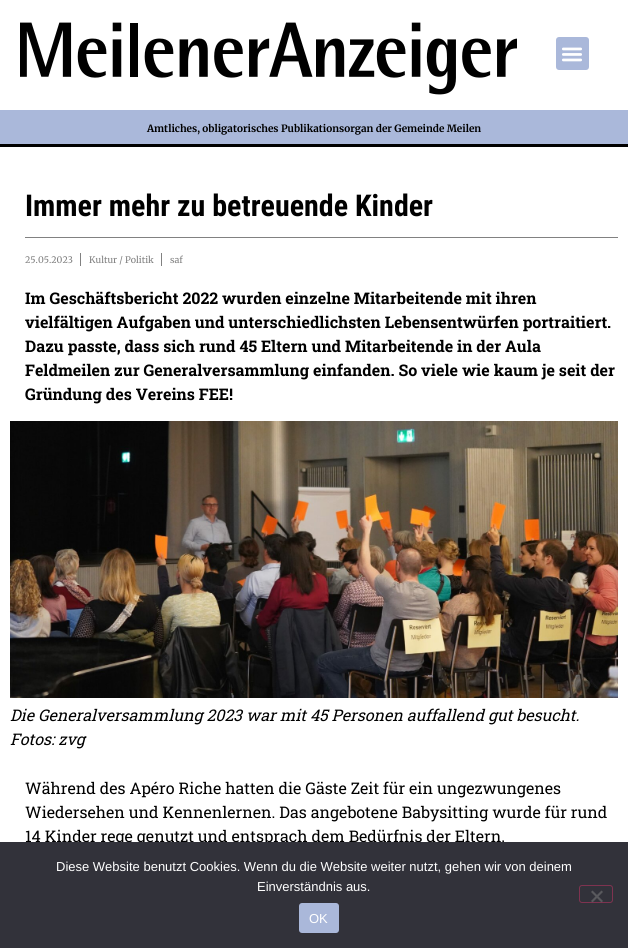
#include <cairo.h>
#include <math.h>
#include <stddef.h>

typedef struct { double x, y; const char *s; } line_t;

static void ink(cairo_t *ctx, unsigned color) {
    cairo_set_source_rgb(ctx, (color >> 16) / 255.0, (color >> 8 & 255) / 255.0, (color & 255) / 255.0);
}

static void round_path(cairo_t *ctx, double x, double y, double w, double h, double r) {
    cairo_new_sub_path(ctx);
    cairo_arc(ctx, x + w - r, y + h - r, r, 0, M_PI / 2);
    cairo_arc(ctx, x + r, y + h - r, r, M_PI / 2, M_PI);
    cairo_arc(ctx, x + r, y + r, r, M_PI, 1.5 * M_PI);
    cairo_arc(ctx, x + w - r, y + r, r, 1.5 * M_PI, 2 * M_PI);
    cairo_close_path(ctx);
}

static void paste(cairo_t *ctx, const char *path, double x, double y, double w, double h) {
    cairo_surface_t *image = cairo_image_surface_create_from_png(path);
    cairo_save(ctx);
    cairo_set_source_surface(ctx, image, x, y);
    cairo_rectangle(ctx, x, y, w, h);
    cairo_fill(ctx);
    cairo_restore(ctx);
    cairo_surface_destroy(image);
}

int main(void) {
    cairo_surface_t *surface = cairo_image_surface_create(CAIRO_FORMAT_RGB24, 628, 948);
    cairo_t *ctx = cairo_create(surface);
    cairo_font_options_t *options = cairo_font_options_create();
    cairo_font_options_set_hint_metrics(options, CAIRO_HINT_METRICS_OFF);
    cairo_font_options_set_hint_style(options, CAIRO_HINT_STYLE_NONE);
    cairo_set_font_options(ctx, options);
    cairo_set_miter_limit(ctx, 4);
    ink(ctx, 0xFFFFFF);
    cairo_paint(ctx);
    paste(ctx, "media/1.png", 20, 22, 497, 73);
    ink(ctx, 0xAAB8DA);
    round_path(ctx, 556, 37, 33, 33, 3);
    cairo_fill(ctx);
    paste(ctx, "media/2.png", 562, 47, 20, 15);
    cairo_rectangle(ctx, 0, 110, 628, 34);
    cairo_fill(ctx);
    cairo_select_font_face(ctx, "Merriweather", CAIRO_FONT_SLANT_NORMAL, CAIRO_FONT_WEIGHT_BOLD);
    cairo_set_font_size(ctx, 10);
    ink(ctx, 0x000000);
    cairo_move_to(ctx, 147, 132);
    cairo_show_text(ctx, "Amtliches, obligatorisches Publikationsorgan der Gemeinde Meilen");
    cairo_rectangle(ctx, 0, 144, 628, 3);
    cairo_fill(ctx);
    cairo_select_font_face(ctx, "Roboto Condensed", CAIRO_FONT_SLANT_NORMAL, CAIRO_FONT_WEIGHT_BOLD);
    cairo_set_font_size(ctx, 30);
    cairo_move_to(ctx, 25, 216);
    cairo_show_text(ctx, "Immer mehr zu betreuende Kinder");
    ink(ctx, 0x818181);
    cairo_rectangle(ctx, 25, 237, 593, 1);
    cairo_fill(ctx);
    cairo_select_font_face(ctx, "Merriweather", CAIRO_FONT_SLANT_NORMAL, CAIRO_FONT_WEIGHT_NORMAL);
    cairo_set_font_size(ctx, 9);
    cairo_move_to(ctx, 25, 263);
    cairo_show_text(ctx, "25.05.2023");
    cairo_rectangle(ctx, 80, 253, 1, 13);
    cairo_fill(ctx);
    cairo_move_to(ctx, 89, 263);
    cairo_show_text(ctx, "Kultur / Politik");
    cairo_rectangle(ctx, 161, 253, 1, 13);
    cairo_fill(ctx);
    cairo_move_to(ctx, 170, 263);
    cairo_show_text(ctx, "saf");
    cairo_select_font_face(ctx, "Roboto Slab", CAIRO_FONT_SLANT_NORMAL, CAIRO_FONT_WEIGHT_BOLD);
    cairo_set_font_size(ctx, 16);
    ink(ctx, 0x000000);
    {
        static const line_t items[] = {
            {25, 304, "Im Geschäftsbericht 2022 wurden einzelne Mitarbeitende mit ihren"},
            {25, 328, "vielfältigen Aufgaben und unterschiedlichsten Lebensentwürfen portraitiert."},
            {25, 352, "Dazu passte, dass sich rund 45 Eltern und Mitarbeitende in der Aula"},
            {25, 376, "Feldmeilen zur Generalversammlung einfanden. So viele wie kaum je seit der"},
            {25, 400, "Gründung des Vereins FEE!"},
        };
        for (size_t i = 0; i < sizeof items / sizeof *items; i++) {
            cairo_move_to(ctx, items[i].x, items[i].y);
            cairo_show_text(ctx, items[i].s);
        }
    }
    paste(ctx, "media/3.png", 10, 421, 608, 277);
    cairo_select_font_face(ctx, "Roboto Slab", CAIRO_FONT_SLANT_ITALIC, CAIRO_FONT_WEIGHT_NORMAL);
    cairo_move_to(ctx, 10, 721);
    cairo_show_text(ctx, "Die Generalversammlung 2023 war mit 45 Personen auffallend gut besucht.");
    cairo_move_to(ctx, 10, 745);
    cairo_show_text(ctx, "Fotos: zvg");
    cairo_select_font_face(ctx, "Roboto Slab", CAIRO_FONT_SLANT_NORMAL, CAIRO_FONT_WEIGHT_NORMAL);
    {
        static const line_t items[] = {
            {25, 794, "Während des Apéro Riche hatten die Gäste Zeit für ein ungezwungenes"},
            {25, 818, "Wiedersehen und Kennenlernen. Das angebotene Babysitting wurde für rund"},
            {25, 842, "14 Kinder rege genutzt und entsprach dem Bedürfnis der Eltern."},
        };
        for (size_t i = 0; i < sizeof items / sizeof *items; i++) {
            cairo_move_to(ctx, items[i].x, items[i].y);
            cairo_show_text(ctx, items[i].s);
        }
    }
    ink(ctx, 0x32323A);
    cairo_rectangle(ctx, 0, 842, 628, 106);
    cairo_fill(ctx);
    cairo_select_font_face(ctx, "Liberation Sans", CAIRO_FONT_SLANT_NORMAL, CAIRO_FONT_WEIGHT_NORMAL);
    cairo_set_font_size(ctx, 13);
    ink(ctx, 0xFFFFFF);
    cairo_move_to(ctx, 56, 871);
    cairo_show_text(ctx, "Diese Website benutzt Cookies. Wenn du die Website weiter nutzt, gehen wir von deinem");
    cairo_move_to(ctx, 257, 891);
    cairo_show_text(ctx, "Einverständnis aus.");
    round_path(ctx, 579.5, 885.5, 33, 17, 2.5);
    ink(ctx, 0x7F3350);
    cairo_set_line_width(ctx, 1);
    cairo_stroke(ctx);
    ink(ctx, 0x59595D);
    cairo_new_path(ctx);
    cairo_move_to(ctx, 601.5, 890.5);
    cairo_line_to(ctx, 603, 892);
    cairo_line_to(ctx, 592.5, 902.5);
    cairo_line_to(ctx, 591, 901);
    cairo_close_path(ctx);
    cairo_fill(ctx);
    cairo_new_path(ctx);
    cairo_move_to(ctx, 591, 892);
    cairo_line_to(ctx, 592.5, 890.5);
    cairo_line_to(ctx, 603, 901);
    cairo_line_to(ctx, 601.5, 902.5);
    cairo_close_path(ctx);
    cairo_fill(ctx);
    ink(ctx, 0xAAB8DA);
    round_path(ctx, 299, 903, 40, 30, 3);
    cairo_fill(ctx);
    ink(ctx, 0xFFFFFF);
    cairo_move_to(ctx, 309, 923);
    cairo_show_text(ctx, "OK");
    cairo_surface_write_to_png(surface, "image.png");
    cairo_font_options_destroy(options);
    cairo_destroy(ctx);
    cairo_surface_destroy(surface);
    return 0;
}
